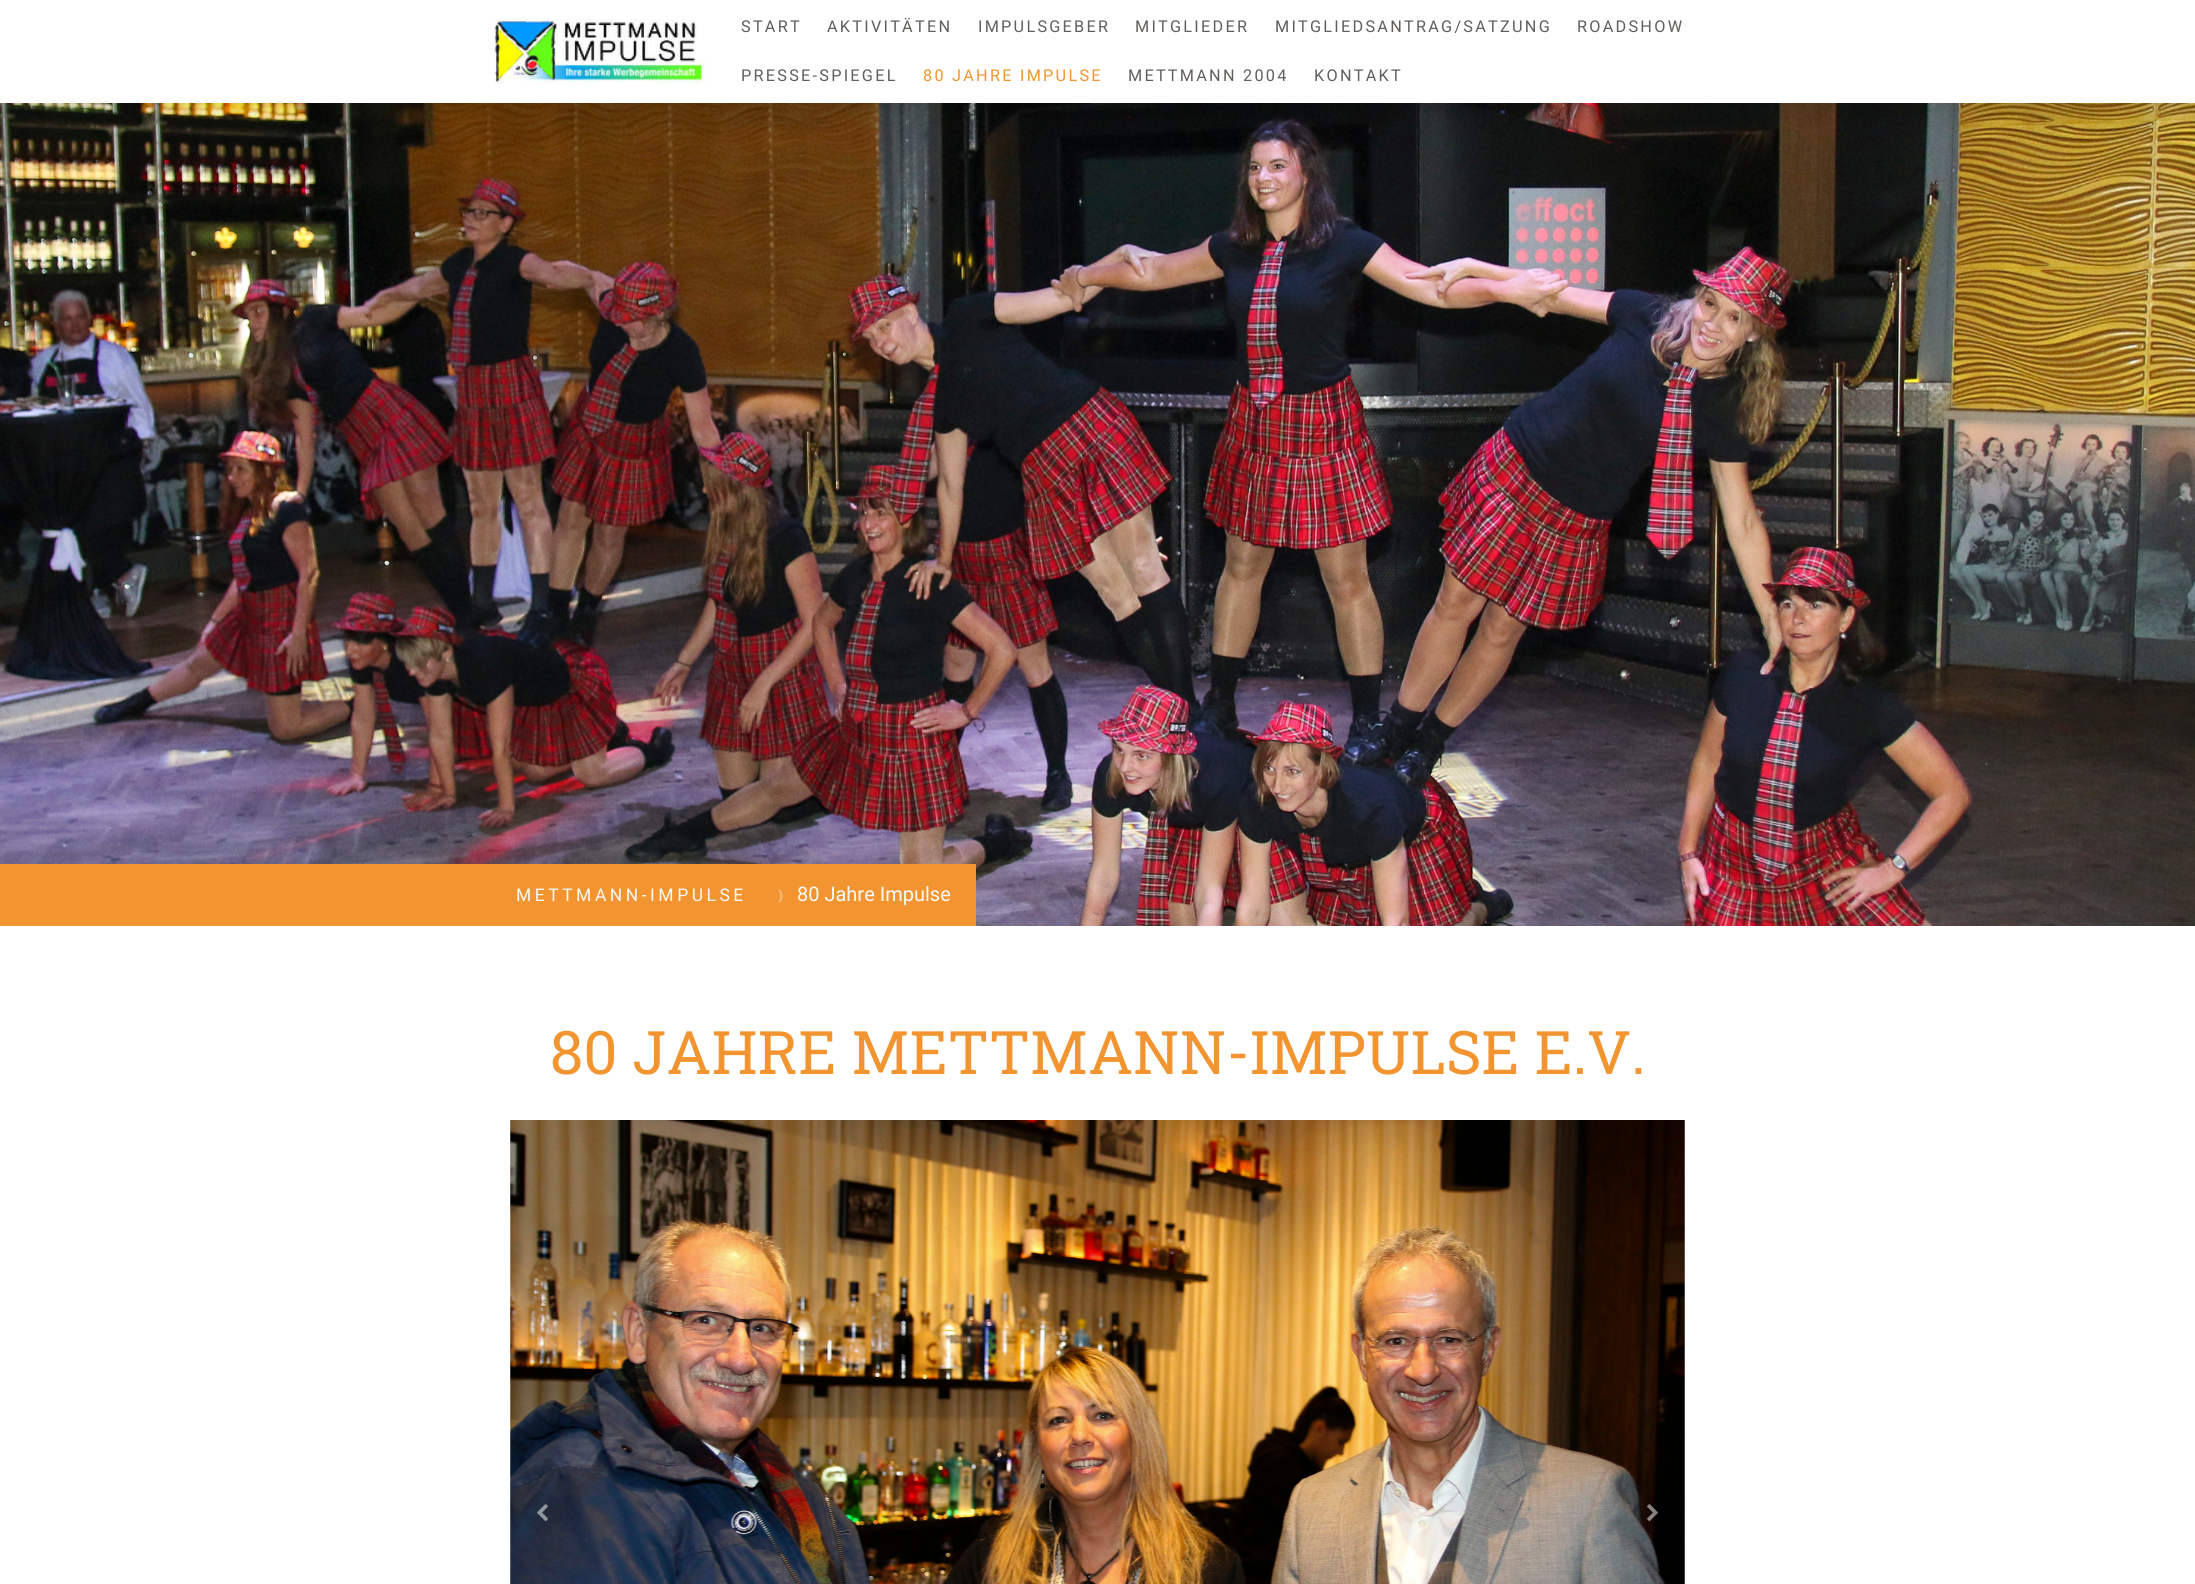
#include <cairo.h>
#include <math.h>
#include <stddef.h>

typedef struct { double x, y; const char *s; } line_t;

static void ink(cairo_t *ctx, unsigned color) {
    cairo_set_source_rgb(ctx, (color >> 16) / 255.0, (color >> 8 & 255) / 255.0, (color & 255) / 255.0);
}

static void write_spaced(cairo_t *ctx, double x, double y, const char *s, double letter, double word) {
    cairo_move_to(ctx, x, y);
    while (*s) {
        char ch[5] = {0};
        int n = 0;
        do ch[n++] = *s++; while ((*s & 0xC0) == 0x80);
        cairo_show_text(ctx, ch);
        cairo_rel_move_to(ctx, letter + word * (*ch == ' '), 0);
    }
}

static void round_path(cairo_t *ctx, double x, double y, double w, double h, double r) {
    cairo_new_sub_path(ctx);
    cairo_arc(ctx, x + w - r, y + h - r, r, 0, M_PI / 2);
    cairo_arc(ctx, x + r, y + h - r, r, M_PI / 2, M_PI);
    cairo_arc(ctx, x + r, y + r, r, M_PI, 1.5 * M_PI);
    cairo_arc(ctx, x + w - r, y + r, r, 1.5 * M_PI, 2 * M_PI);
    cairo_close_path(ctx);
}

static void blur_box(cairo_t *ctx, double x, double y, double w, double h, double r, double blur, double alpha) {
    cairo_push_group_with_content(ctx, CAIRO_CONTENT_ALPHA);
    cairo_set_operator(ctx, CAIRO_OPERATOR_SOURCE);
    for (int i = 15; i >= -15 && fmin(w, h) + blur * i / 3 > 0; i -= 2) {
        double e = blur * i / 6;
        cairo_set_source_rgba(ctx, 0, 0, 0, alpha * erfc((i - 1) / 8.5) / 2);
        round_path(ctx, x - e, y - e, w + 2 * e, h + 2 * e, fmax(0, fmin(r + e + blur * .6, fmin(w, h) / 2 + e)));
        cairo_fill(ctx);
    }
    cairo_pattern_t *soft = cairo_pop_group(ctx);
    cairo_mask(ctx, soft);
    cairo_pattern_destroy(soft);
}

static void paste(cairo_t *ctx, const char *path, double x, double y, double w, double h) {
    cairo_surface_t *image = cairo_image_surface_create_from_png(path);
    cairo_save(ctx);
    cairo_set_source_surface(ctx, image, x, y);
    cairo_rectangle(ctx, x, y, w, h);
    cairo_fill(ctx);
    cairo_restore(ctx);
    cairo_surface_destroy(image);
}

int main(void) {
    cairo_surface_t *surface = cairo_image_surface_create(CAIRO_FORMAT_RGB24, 2195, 1584);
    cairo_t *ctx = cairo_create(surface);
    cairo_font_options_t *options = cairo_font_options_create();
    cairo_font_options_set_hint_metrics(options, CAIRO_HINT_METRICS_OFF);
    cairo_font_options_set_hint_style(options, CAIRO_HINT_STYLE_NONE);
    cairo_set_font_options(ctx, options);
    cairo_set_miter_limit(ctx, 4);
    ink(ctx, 0xFFFFFF);
    cairo_paint(ctx);
    paste(ctx, "media/2.png", 0, 103, 2195, 823);
    ink(ctx, 0x000000);
    blur_box(ctx, 0, 0, 2195, 103, 0, 19, 0.2);
    ink(ctx, 0xFFFFFF);
    cairo_rectangle(ctx, 0, 0, 2195, 103);
    cairo_fill(ctx);
    paste(ctx, "media/1.png", 494, 18, 211, 66);
    cairo_select_font_face(ctx, "Roboto", CAIRO_FONT_SLANT_NORMAL, CAIRO_FONT_WEIGHT_NORMAL);
    cairo_set_font_size(ctx, 16.25);
    ink(ctx, 0x615E5C);
    {
        static const line_t items[] = {
            {741, 32, "START"},
            {827, 32, "AKTIVITÄTEN"},
            {978, 32, "IMPULSGEBER"},
            {1135, 32, "MITGLIEDER"},
            {1275, 32, "MITGLIEDSANTRAG/SATZUNG"},
            {1577, 32, "ROADSHOW"},
            {741, 81, "PRESSE-SPIEGEL"},
        };
        for (size_t i = 0; i < sizeof items / sizeof *items; i++) {
            write_spaced(ctx, items[i].x, items[i].y, items[i].s, 2.25, 0);
        }
    }
    ink(ctx, 0xF29530);
    write_spaced(ctx, 923, 81, "80 JAHRE IMPULSE", 2.25, 0);
    ink(ctx, 0x615E5C);
    write_spaced(ctx, 1128, 81, "METTMANN 2004", 2.25, 0);
    write_spaced(ctx, 1314, 81, "KONTAKT", 2.25, 0);
    ink(ctx, 0xF29530);
    cairo_rectangle(ctx, 0, 864, 976, 62);
    cairo_fill(ctx);
    cairo_set_font_size(ctx, 17.5);
    ink(ctx, 0xFAFAFA);
    write_spaced(ctx, 516, 901, "METTMANN-IMPULSE", 3.5, 0);
    cairo_select_font_face(ctx, "FreeSerif", CAIRO_FONT_SLANT_NORMAL, CAIRO_FONT_WEIGHT_NORMAL);
    cairo_set_font_size(ctx, 16);
    ink(ctx, 0xF6C895);
    cairo_move_to(ctx, 778, 900);
    cairo_show_text(ctx, "⦆");
    cairo_select_font_face(ctx, "Roboto", CAIRO_FONT_SLANT_NORMAL, CAIRO_FONT_WEIGHT_NORMAL);
    cairo_set_font_size(ctx, 20);
    ink(ctx, 0xFAFAFA);
    cairo_move_to(ctx, 797, 901);
    cairo_show_text(ctx, "80 Jahre Impulse");
    cairo_select_font_face(ctx, "Roboto Slab", CAIRO_FONT_SLANT_NORMAL, CAIRO_FONT_WEIGHT_NORMAL);
    cairo_set_font_size(ctx, 60);
    ink(ctx, 0xF29530);
    cairo_move_to(ctx, 550, 1074);
    cairo_show_text(ctx, "80 JAHRE METTMANN-IMPULSE E.V.");
    paste(ctx, "media/3.png", 510, 1120, 1175, 464);
    cairo_set_source_rgba(ctx, 0, 0, 0, 0.07);
    cairo_arc(ctx, 543, 1513, 20, 0, 2 * M_PI);
    cairo_fill(ctx);
    paste(ctx, "media/4.png", 537, 1504, 11, 18);
    cairo_arc(ctx, 1653, 1513, 20, 0, 2 * M_PI);
    cairo_fill(ctx);
    paste(ctx, "media/5.png", 1647, 1504, 11, 18);
    cairo_surface_write_to_png(surface, "image.png");
    cairo_font_options_destroy(options);
    cairo_destroy(ctx);
    cairo_surface_destroy(surface);
    return 0;
}
